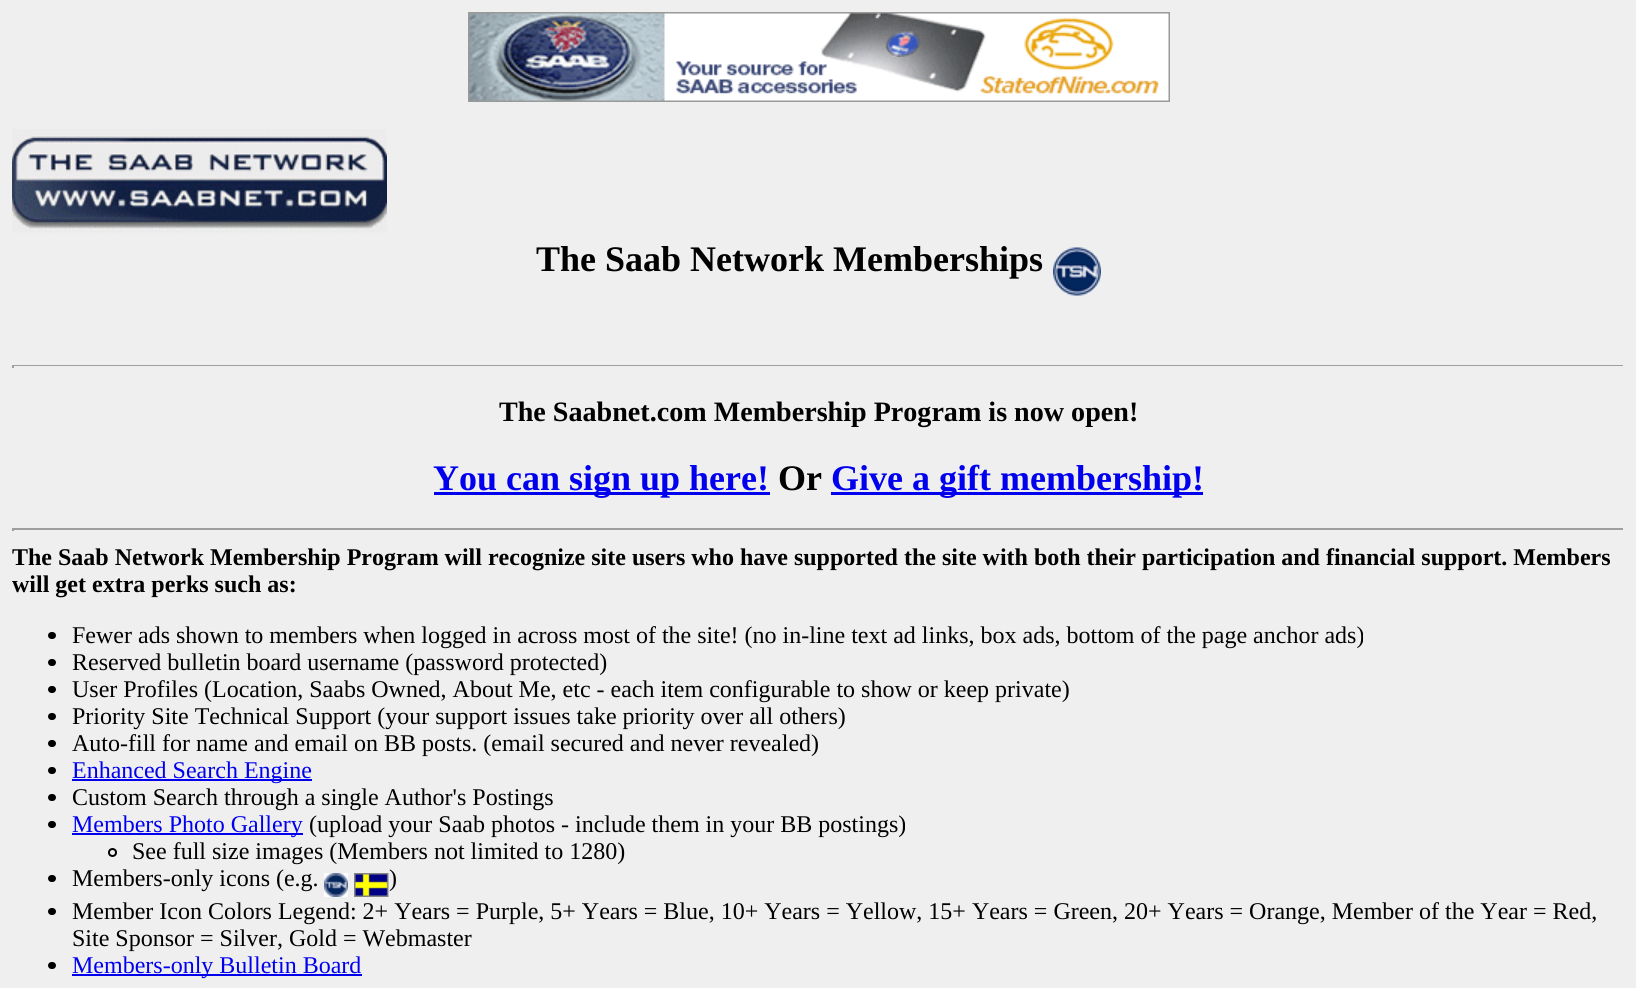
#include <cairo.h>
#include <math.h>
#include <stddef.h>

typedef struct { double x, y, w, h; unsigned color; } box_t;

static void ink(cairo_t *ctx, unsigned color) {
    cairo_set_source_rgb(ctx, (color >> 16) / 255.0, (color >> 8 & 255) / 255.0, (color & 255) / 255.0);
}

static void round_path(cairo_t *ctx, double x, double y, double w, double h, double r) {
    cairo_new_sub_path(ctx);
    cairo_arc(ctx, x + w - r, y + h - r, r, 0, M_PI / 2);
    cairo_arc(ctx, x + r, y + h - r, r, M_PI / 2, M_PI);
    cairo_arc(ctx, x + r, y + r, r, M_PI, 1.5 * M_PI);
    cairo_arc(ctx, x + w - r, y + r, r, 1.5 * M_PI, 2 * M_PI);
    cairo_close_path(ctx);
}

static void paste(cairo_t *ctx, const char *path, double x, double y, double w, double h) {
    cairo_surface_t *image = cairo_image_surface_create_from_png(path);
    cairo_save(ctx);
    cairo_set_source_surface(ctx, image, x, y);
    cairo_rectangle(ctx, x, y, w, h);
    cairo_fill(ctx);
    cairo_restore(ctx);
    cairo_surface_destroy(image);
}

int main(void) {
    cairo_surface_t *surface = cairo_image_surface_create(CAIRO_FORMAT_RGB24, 1636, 988);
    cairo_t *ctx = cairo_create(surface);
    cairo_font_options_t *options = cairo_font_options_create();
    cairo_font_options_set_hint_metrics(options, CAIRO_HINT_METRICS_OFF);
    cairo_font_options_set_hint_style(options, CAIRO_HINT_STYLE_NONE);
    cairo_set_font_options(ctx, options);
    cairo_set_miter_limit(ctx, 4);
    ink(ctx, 0xEFEFEF);
    cairo_paint(ctx);
    paste(ctx, "media/1.png", 468, 12, 702, 90);
    paste(ctx, "media/2.png", 12, 129, 375, 104);
    cairo_select_font_face(ctx, "Liberation Serif", CAIRO_FONT_SLANT_NORMAL, CAIRO_FONT_WEIGHT_BOLD);
    cairo_set_font_size(ctx, 36);
    ink(ctx, 0x000000);
    cairo_move_to(ctx, 536, 271);
    cairo_show_text(ctx, "The Saab Network Memberships");
    paste(ctx, "media/3.png", 1053, 247, 48, 49);
    {
        static const box_t items[] = {
            {12, 365, 1613, 1, 0x9F9F9F},
            {1623, 365, 2, 3, 0xEEEEEE},
            {12, 365, 2, 3, 0x9F9F9F},
        };
        for (size_t i = 0; i < sizeof items / sizeof *items; i++) {
            ink(ctx, items[i].color);
            cairo_rectangle(ctx, items[i].x, items[i].y, items[i].w, items[i].h);
            cairo_fill(ctx);
        }
    }
    cairo_set_font_size(ctx, 28.1);
    ink(ctx, 0x000000);
    cairo_move_to(ctx, 499, 421);
    cairo_show_text(ctx, "The Saabnet.com Membership Program is now open!");
    ink(ctx, 0x0000EE);
    cairo_rectangle(ctx, 434, 492, 336, 3);
    cairo_fill(ctx);
    cairo_set_font_size(ctx, 36);
    cairo_move_to(ctx, 433, 490);
    cairo_show_text(ctx, "You can sign up here!");
    ink(ctx, 0x000000);
    cairo_move_to(ctx, 778, 490);
    cairo_show_text(ctx, "Or");
    ink(ctx, 0x0000EE);
    cairo_rectangle(ctx, 831, 492, 372, 3);
    cairo_fill(ctx);
    cairo_move_to(ctx, 831, 490);
    cairo_show_text(ctx, "Give a gift membership!");
    {
        static const box_t items[] = {
            {12, 528, 1613, 2, 0x9F9F9F},
            {1623, 528, 2, 3, 0xEEEEEE},
            {12, 528, 2, 3, 0x9F9F9F},
        };
        for (size_t i = 0; i < sizeof items / sizeof *items; i++) {
            ink(ctx, items[i].color);
            cairo_rectangle(ctx, items[i].x, items[i].y, items[i].w, items[i].h);
            cairo_fill(ctx);
        }
    }
    cairo_set_font_size(ctx, 24);
    ink(ctx, 0x000000);
    cairo_move_to(ctx, 12, 565);
    cairo_show_text(ctx, "The Saab Network Membership Program will recognize site users who have supported the site with both their participation and financial support. Members");
    cairo_move_to(ctx, 12, 592);
    cairo_show_text(ctx, "will get extra perks such as:");
    round_path(ctx, 48, 632, 8, 7, 3.5);
    cairo_fill(ctx);
    cairo_select_font_face(ctx, "Liberation Serif", CAIRO_FONT_SLANT_NORMAL, CAIRO_FONT_WEIGHT_NORMAL);
    cairo_move_to(ctx, 72, 643);
    cairo_show_text(ctx, "Fewer ads shown to members when logged in across most of the site! (no in-line text ad links, box ads, bottom of the page anchor ads)");
    round_path(ctx, 48, 659, 8, 7, 3.5);
    cairo_fill(ctx);
    cairo_move_to(ctx, 72, 670);
    cairo_show_text(ctx, "Reserved bulletin board username (password protected)");
    round_path(ctx, 48, 686, 8, 7, 3.5);
    cairo_fill(ctx);
    cairo_move_to(ctx, 72, 697);
    cairo_show_text(ctx, "User Profiles (Location, Saabs Owned, About Me, etc - each item configurable to show or keep private)");
    round_path(ctx, 48, 713, 8, 7, 3.5);
    cairo_fill(ctx);
    cairo_move_to(ctx, 72, 724);
    cairo_show_text(ctx, "Priority Site Technical Support (your support issues take priority over all others)");
    round_path(ctx, 48, 740, 8, 7, 3.5);
    cairo_fill(ctx);
    cairo_move_to(ctx, 72, 751);
    cairo_show_text(ctx, "Auto-fill for name and email on BB posts. (email secured and never revealed)");
    round_path(ctx, 48, 767, 8, 7, 3.5);
    cairo_fill(ctx);
    ink(ctx, 0x0000EE);
    cairo_rectangle(ctx, 72, 779, 240, 2);
    cairo_fill(ctx);
    cairo_move_to(ctx, 72, 778);
    cairo_show_text(ctx, "Enhanced Search Engine");
    ink(ctx, 0x000000);
    round_path(ctx, 48, 794, 8, 7, 3.5);
    cairo_fill(ctx);
    cairo_move_to(ctx, 72, 805);
    cairo_show_text(ctx, "Custom Search through a single Author's Postings");
    round_path(ctx, 48, 821, 8, 7, 3.5);
    cairo_fill(ctx);
    ink(ctx, 0x0000EE);
    cairo_rectangle(ctx, 72, 833, 231, 2);
    cairo_fill(ctx);
    cairo_move_to(ctx, 72, 832);
    cairo_show_text(ctx, "Members Photo Gallery");
    ink(ctx, 0x000000);
    cairo_move_to(ctx, 309, 832);
    cairo_show_text(ctx, "(upload your Saab photos - include them in your BB postings)");
    cairo_new_path(ctx);
    cairo_arc(ctx, 112.5, 852.5, 3.5, 0, 2 * M_PI);
    cairo_stroke(ctx);
    cairo_move_to(ctx, 132, 859);
    cairo_show_text(ctx, "See full size images (Members not limited to 1280)");
    round_path(ctx, 48, 875, 8, 7, 3.5);
    cairo_fill(ctx);
    cairo_move_to(ctx, 72, 886);
    cairo_show_text(ctx, "Members-only icons (e.g.");
    paste(ctx, "media/4.png", 324, 873, 24, 24);
    paste(ctx, "media/5.png", 354, 873, 35, 24);
    cairo_move_to(ctx, 389, 886);
    cairo_show_text(ctx, ")");
    round_path(ctx, 48, 908, 8, 7, 3.5);
    cairo_fill(ctx);
    cairo_move_to(ctx, 72, 919);
    cairo_show_text(ctx, "Member Icon Colors Legend: 2+ Years = Purple, 5+ Years = Blue, 10+ Years = Yellow, 15+ Years = Green, 20+ Years = Orange, Member of the Year = Red,");
    cairo_move_to(ctx, 72, 946);
    cairo_show_text(ctx, "Site Sponsor = Silver, Gold = Webmaster");
    round_path(ctx, 48, 962, 8, 7, 3.5);
    cairo_fill(ctx);
    ink(ctx, 0x0000EE);
    cairo_rectangle(ctx, 72, 974, 290, 2);
    cairo_fill(ctx);
    cairo_move_to(ctx, 72, 973);
    cairo_show_text(ctx, "Members-only Bulletin Board");
    cairo_surface_write_to_png(surface, "image.png");
    cairo_font_options_destroy(options);
    cairo_destroy(ctx);
    cairo_surface_destroy(surface);
    return 0;
}
